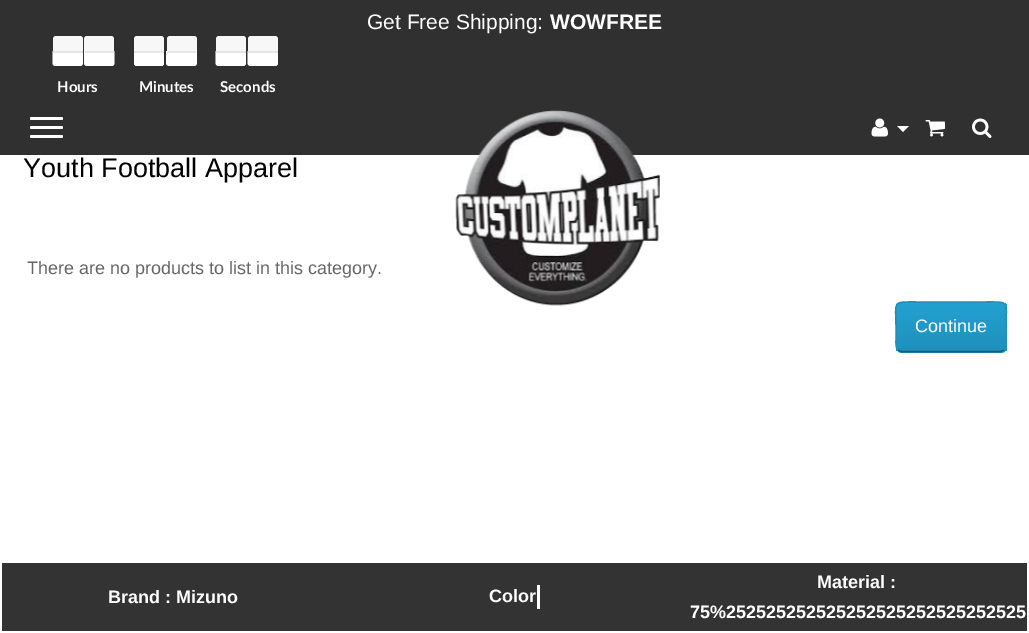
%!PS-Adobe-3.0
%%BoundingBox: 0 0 1029 633
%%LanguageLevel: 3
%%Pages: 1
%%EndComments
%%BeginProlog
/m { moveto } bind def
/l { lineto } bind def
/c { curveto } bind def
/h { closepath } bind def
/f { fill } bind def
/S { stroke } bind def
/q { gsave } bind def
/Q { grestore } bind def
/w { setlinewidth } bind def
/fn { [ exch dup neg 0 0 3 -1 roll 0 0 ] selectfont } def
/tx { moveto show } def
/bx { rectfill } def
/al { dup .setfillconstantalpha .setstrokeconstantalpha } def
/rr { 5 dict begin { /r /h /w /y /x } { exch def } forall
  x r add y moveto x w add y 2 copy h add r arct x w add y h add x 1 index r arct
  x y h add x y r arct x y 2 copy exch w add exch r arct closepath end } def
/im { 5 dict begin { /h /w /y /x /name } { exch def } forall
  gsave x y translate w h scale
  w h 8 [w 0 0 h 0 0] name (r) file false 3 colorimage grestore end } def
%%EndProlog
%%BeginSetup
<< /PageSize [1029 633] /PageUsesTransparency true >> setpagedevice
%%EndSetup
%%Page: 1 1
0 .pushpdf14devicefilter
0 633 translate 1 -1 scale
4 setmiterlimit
1 setgray
0 0 1029 633 bx
0.188 setgray
0 0 1029 155 bx
/LiberationSans-Regular 21 fn
1 setgray
(Get Free Shipping:) 367 29 tx
/LiberationSans-Bold 21 fn
(WOWFREE) 550 29 tx
0.969 setgray
56 36 m 80 36 l 81.5 36 83 37.5 83 39 c 83 51 l 53 51 l 53 39 l 53 37.5 54.5 36 56 36 c h f
1 setgray
53 51 m 83 51 l 83 63 l 83 64.5 81.5 66 80 66 c 56 66 l 54.5 66 53 64.5 53 63 c h f
0.1 al
0 setgray
82 51 1 2 bx
1 al
1 setgray
55.5 66 m 79.5 66 l 81 66 82.5 64.5 82.5 63 c 82.5 51 l 52.5 51 l 52.5 63 l 52.5 64.5 54 66 55.5 66 c h f
0.1 al
0 setgray
53 51 30 2 bx
1 al
0.969 setgray
87 36 m 111 36 l 112.5 36 114 37.5 114 39 c 114 51 l 84 51 l 84 39 l 84 37.5 85.5 36 87 36 c h f
1 setgray
84 51 m 114 51 l 114 63 l 114 64.5 112.5 66 111 66 c 87 66 l 85.5 66 84 64.5 84 63 c h f
88 66 m 111.5 66 l 113 66 114.5 64.5 114.5 63 c 114.5 51 l 84.5 51 l 84.5 63 l 84.5 64.5 86 66 88 66 c h f
0.902 setgray
85 51 29 2 bx
/Lato-Bold 15 fn
1 setgray
(Hours) 57 92 tx
0.969 setgray
137 36 m 161 36 l 162.5 36 164 37.5 164 39 c 164 51 l 134 51 l 134 39 l 134 37.5 135.5 36 137 36 c h f
1 setgray
134 51 m 164 51 l 164 63 l 164 64.5 162.5 66 161 66 c 137 66 l 135.5 66 134 64.5 134 63 c h f
137.5 66 m 161 66 l 162.5 66 164 64.5 164 63 c 164 51 l 134 51 l 134 63 l 134 64.5 135.5 66 137.5 66 c h f
0.902 setgray
134 51 30 2 bx
0.969 setgray
170 36 m 194 36 l 195.5 36 197 37.5 197 39 c 197 51 l 167 51 l 167 39 l 167 37.5 168.5 36 170 36 c h f
1 setgray
167 51 m 197 51 l 197 63 l 197 64.5 195.5 66 194 66 c 170 66 l 168.5 66 167 64.5 167 63 c h f
169.5 66 m 193 66 l 194.5 66 196 64.5 196 63 c 196 51 l 166 51 l 166 63 l 166 64.5 167.5 66 169.5 66 c h f
0.902 setgray
167 51 29 2 bx
1 setgray
(Minutes) 139 92 tx
0.969 setgray
219 36 m 243 36 l 244.5 36 246 37.5 246 39 c 246 51 l 216 51 l 216 39 l 216 37.5 217.5 36 219 36 c h f
1 setgray
216 51 m 246 51 l 246 63 l 246 64.5 244.5 66 243 66 c 219 66 l 217.5 66 216 64.5 216 63 c h f
0.1 al
0 setgray
245 51 1 2 bx
1 al
1 setgray
219 66 m 242.5 66 l 244 66 245.5 64.5 245.5 63 c 245.5 51 l 215.5 51 l 215.5 63 l 215.5 64.5 217 66 219 66 c h f
0.1 al
0 setgray
216 51 30 2 bx
1 al
0.969 setgray
251 36 m 275 36 l 276.5 36 278 37.5 278 39 c 278 51 l 248 51 l 248 39 l 248 37.5 249.5 36 251 36 c h f
1 setgray
248 51 m 278 51 l 278 63 l 278 64.5 276.5 66 275 66 c 251 66 l 249.5 66 248 64.5 248 63 c h f
0.1 al
0 setgray
277 51 1 2 bx
1 al
1 setgray
251 66 m 274.5 66 l 276 66 277.5 64.5 277.5 63 c 277.5 51 l 247.5 51 l 247.5 63 l 247.5 64.5 249 66 251 66 c h f
0.1 al
0 setgray
248 51 30 2 bx
1 al
1 setgray
(Seconds) 220 92 tx
30 117 33 3 1.5 rr f
30 126 33 3 1.5 rr f
30 135 33 3 1.5 rr f
(image0.raw) 871 118 17 19 im
897 126 m 909 126 l 903 132 l h f
(image1.raw) 925 120 20 17 im
(image2.raw) 972 118 20 20 im
(image3.raw) 455 110 205 196 im
/LiberationSans-Regular 27 fn
0 setgray
(Youth Football Apparel) 23 177 tx
/LiberationSans-Regular 18 fn
0.4 setgray
(There are no products to list in this category.) 27 274 tx
0.133 0.604 0.784 setrgbcolor
896 302 111 51 6 rr f
q
896 302 111 51 6 rr clip newpath
q 896 303 m 1007 303 l 1007 351 l 896 351 l h clip newpath
<< /ShadingType 2 /ColorSpace /DeviceRGB /Coords [951 303 951 351] /Extend [true true] /Function << /FunctionType 2 /Domain [0 1] /C0 [0.137 0.631 0.82] /C1 [0.122 0.565 0.733] /N 1 >> >> shfill Q
Q
0.078 0.369 0.478 setrgbcolor
1.5 w
1004 350 m 1001 351.5 l 901 351.5 l 898 350 l S
0.122 0.565 0.733 setrgbcolor
898 350 m 895.5 347.5 896 343 896 340 c 896 327 l 896 300 891.5 302 918 302 c 984 302 l 1010.5 302 1006 300 1006 327 c 1006 340 l 1006 343 1006.5 347.5 1004 350 c S
1 setgray
(Continue) 915 332 tx
0.2 setgray
2 563 1025 68 bx
/LiberationSans-Bold 18 fn
1 setgray
(Brand : Mizuno) 108 603 tx
(Color) 489 602 tx
537 585 3 24 bx
(Material :) 817 588 tx
(75%252525252525252525252525252525) 690 618 tx
.poppdf14devicefilter showpage
%%EOF
